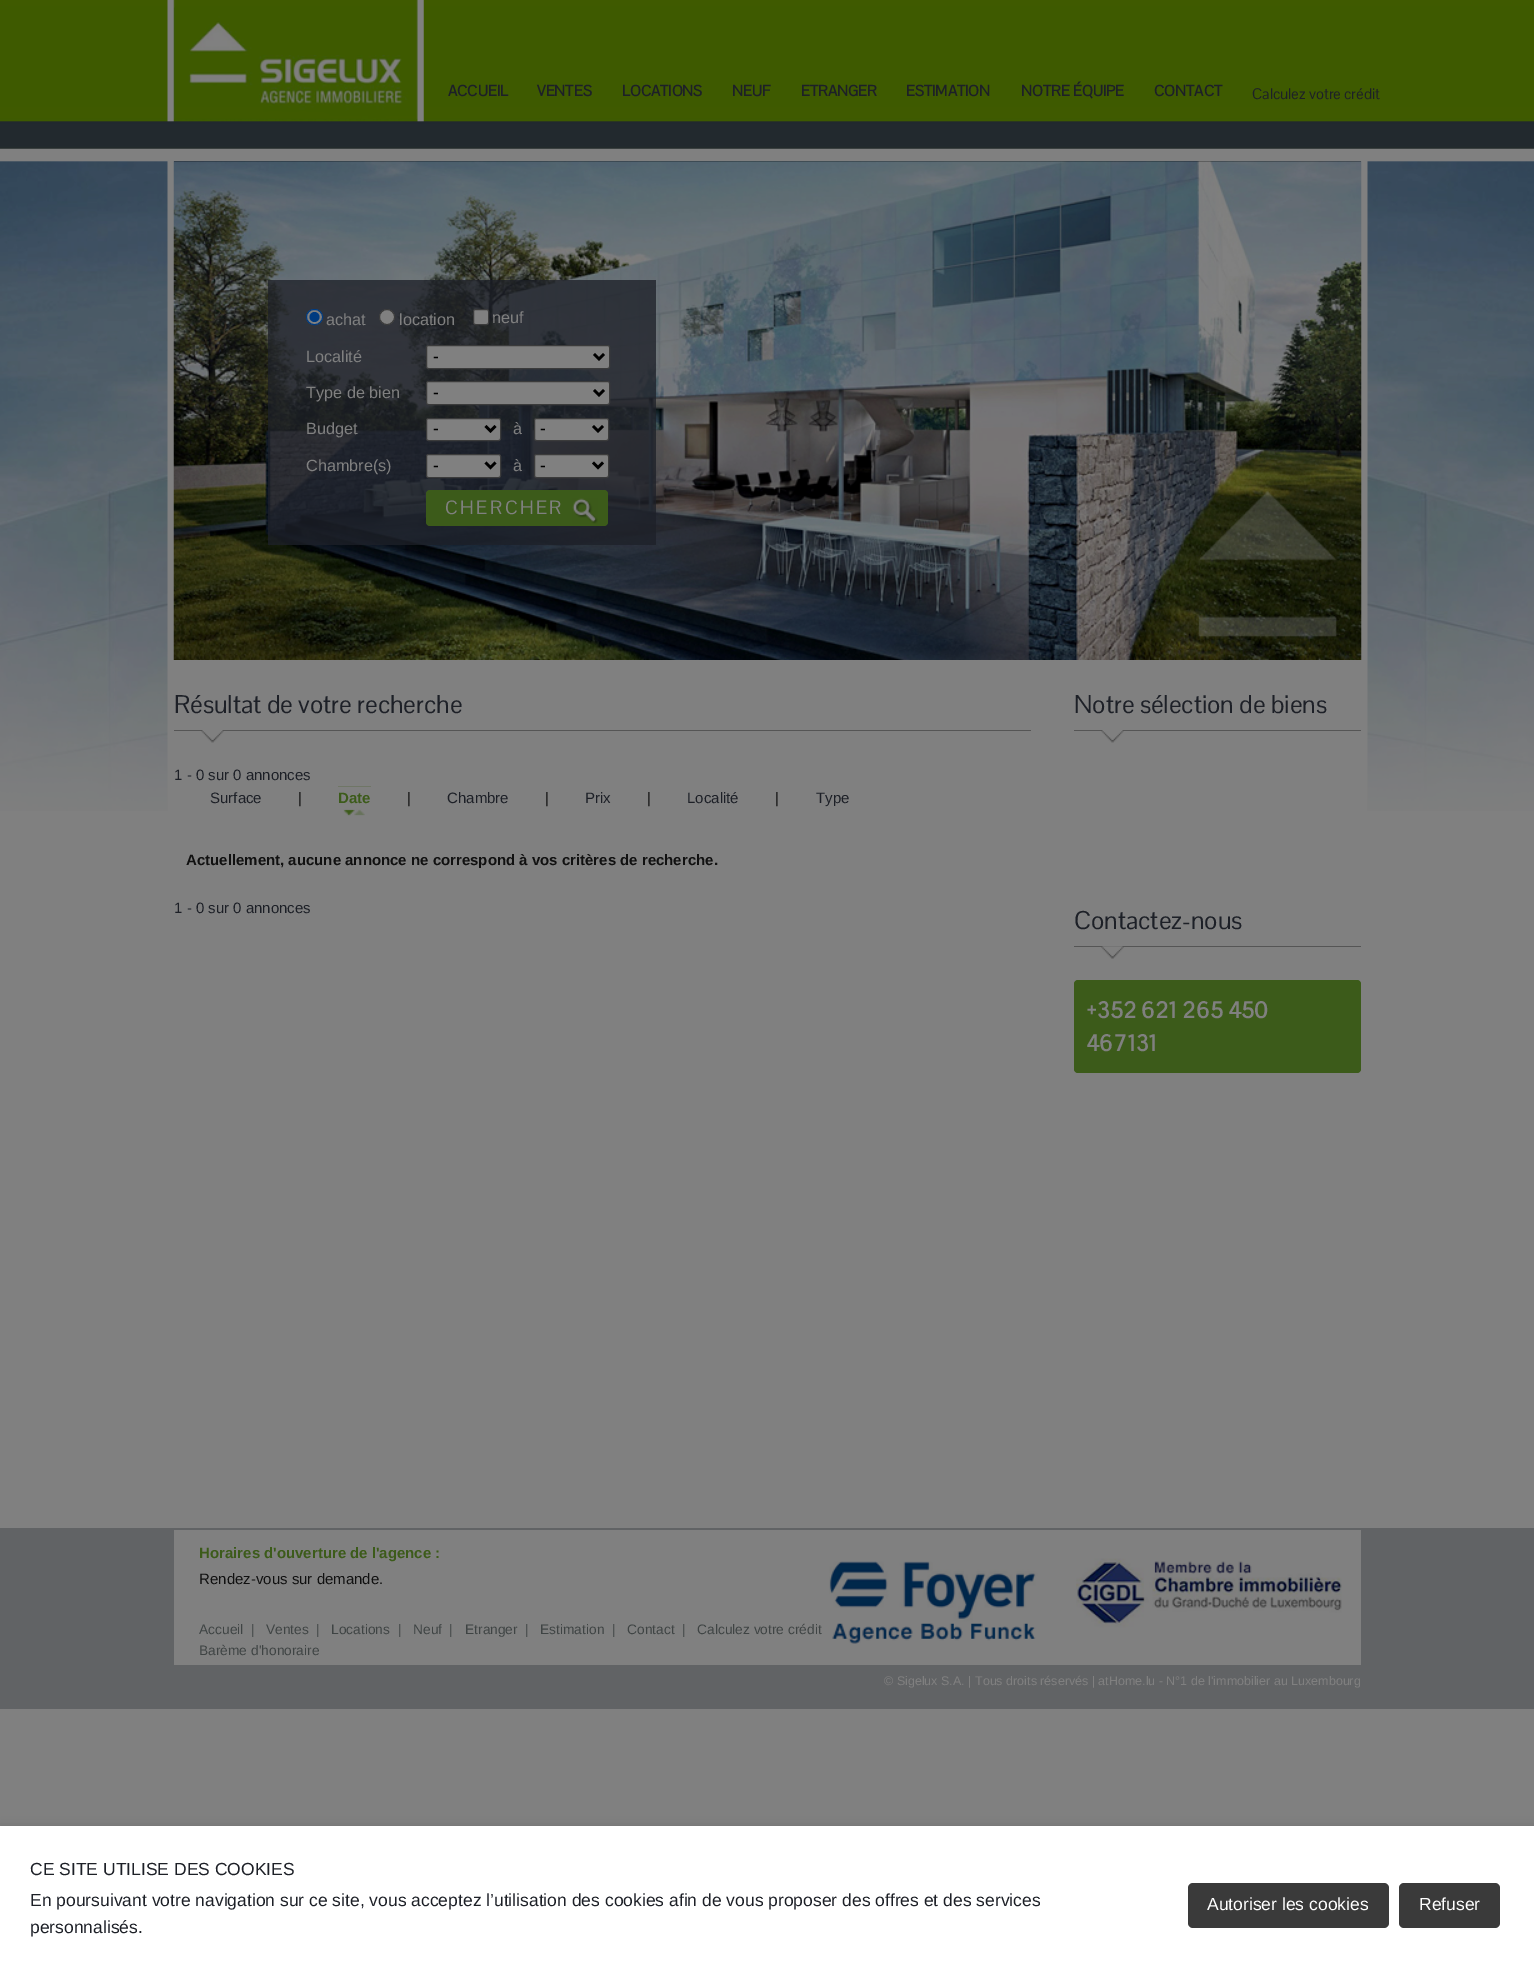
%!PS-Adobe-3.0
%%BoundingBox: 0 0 1534 1982
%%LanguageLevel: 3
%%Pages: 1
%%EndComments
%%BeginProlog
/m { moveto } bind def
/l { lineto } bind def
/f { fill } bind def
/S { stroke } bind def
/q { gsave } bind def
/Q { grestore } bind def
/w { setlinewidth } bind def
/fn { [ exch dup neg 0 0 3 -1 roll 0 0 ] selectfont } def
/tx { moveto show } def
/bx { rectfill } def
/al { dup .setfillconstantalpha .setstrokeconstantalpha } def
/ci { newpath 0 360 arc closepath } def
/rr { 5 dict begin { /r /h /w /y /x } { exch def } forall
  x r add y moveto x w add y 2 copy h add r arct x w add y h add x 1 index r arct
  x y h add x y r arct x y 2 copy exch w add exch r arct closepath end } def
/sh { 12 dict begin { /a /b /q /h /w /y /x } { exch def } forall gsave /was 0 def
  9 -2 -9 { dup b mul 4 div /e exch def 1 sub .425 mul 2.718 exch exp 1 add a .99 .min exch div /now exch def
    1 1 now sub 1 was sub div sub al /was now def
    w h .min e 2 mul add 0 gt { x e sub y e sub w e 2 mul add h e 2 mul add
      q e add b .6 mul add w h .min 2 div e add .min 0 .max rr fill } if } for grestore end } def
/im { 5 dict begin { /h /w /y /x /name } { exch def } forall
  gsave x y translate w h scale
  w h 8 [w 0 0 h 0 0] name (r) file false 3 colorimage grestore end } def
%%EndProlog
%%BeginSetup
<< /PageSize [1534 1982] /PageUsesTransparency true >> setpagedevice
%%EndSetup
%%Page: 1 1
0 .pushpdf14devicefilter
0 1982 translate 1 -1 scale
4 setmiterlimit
0.502 setgray
0 0 1534 1982 bx
(image0.raw) 0 0 1534 811 im
0.38 0.388 0.396 setrgbcolor
0 1528 1534 181 bx
(image1.raw) 173 161 1189 499 im
/PontanoSans-Bold 15 fn
0.114 0.125 0.153 setrgbcolor
(ACCUEIL) 448 96 tx
(VENTES) 537 96 tx
(LOCATIONS) 622 96 tx
(NEUF) 732 96 tx
(ETRANGER) 801 96 tx
(ESTIMATION) 906 96 tx
(NOTRE ÉQUIPE) 1021 96 tx
(CONTACT) 1154 96 tx
/PontanoSans-Regular 15 fn
(Calculez votre crédit) 1252 99 tx
0.77 al
0.114 0.125 0.157 setrgbcolor
268 280 388 265 bx
1 al
0.502 setgray
306.5 309.5 16 15 7.5 rr q f Q
0 0.231 0.502 setrgbcolor
S
314.5 317 5 ci f
/LiberationSans-Regular 16.25 fn
0.502 setgray
(achat) 326 325 tx
387 317 7.5 ci q f Q
0.231 setgray
S
0.502 setgray
(location) 399 325 tx
473.5 309.5 15 15 2 rr q f Q
0.231 setgray
S
0.502 setgray
(neuf) 492 323 tx
(Localité) 306 362 tx
426.5 345.5 183 23 2 rr q f Q
0.231 setgray
S
0 setgray
2.5 w
594 354 m 599 359 l 604 354 l S
/LiberationSans-Regular 17 fn
(-) 433 362 tx
/LiberationSans-Regular 16.25 fn
0.502 setgray
(Type de bien) 306 398 tx
426.5 381.5 183 23 2 rr q f Q
0.231 setgray
1 w
S
0 setgray
2.5 w
594 390 m 599 395 l 604 390 l S
/LiberationSans-Regular 17 fn
(-) 433 398 tx
/LiberationSans-Regular 16.25 fn
0.502 setgray
(Budget) 306 434 tx
426.5 418.5 74 22 2 rr q f Q
0.231 setgray
1 w
S
0 setgray
2.5 w
485.5 426 m 490.5 431 l 495.5 426 l S
/LiberationSans-Regular 17 fn
(-) 433 434 tx
/LiberationSans-Regular 16.25 fn
0.502 setgray
(à) 513 434 tx
534.5 418.5 74 22 2 rr q f Q
0.231 setgray
1 w
S
0 setgray
2.5 w
593 426 m 598 431 l 603 426 l S
/LiberationSans-Regular 17 fn
(-) 540 434 tx
/LiberationSans-Regular 16.25 fn
0.502 setgray
(Chambre\(s\)) 306 471 tx
426.5 454.5 74 23 2 rr q f Q
0.231 setgray
1 w
S
0 setgray
2.5 w
485.5 462.5 m 490.5 467.5 l 495.5 462.5 l S
/LiberationSans-Regular 17 fn
(-) 433 471 tx
/LiberationSans-Regular 16.25 fn
0.502 setgray
(à) 513 471 tx
534.5 454.5 74 23 2 rr q f Q
0.231 setgray
1 w
S
0 setgray
2.5 w
593 462.5 m 598 467.5 l 603 462.5 l S
/LiberationSans-Regular 17 fn
(-) 540 471 tx
0.235 0.357 0.102 setrgbcolor
426 490 182 36 4 rr f
(image2.raw) 572 498 26 26 im
/PontanoSans-Regular 18.75 fn
0.502 setgray
445 514 m 2.5 0 (CHERCHER) ashow
0.333 setgray
174 730 857 1 bx
/PontanoSans-Regular 25 fn
0.114 0.125 0.153 setrgbcolor
(Résultat de votre recherche) 174 713 tx
(image3.raw) 201 730 23 13 im
/LiberationSans-Regular 15 fn
(1 - 0 sur 0 annonces) 174 780 tx
(Surface) 210 803 tx
0.067 setgray
(|) 298 803 tx
0.235 0.357 0.102 setrgbcolor
338 786 33 30 bx
(image4.raw) 338 786 33 35 im
/LiberationSans-Bold 15 fn
(Date) 338 803 tx
/LiberationSans-Regular 15 fn
0.067 setgray
(|) 407 803 tx
0.114 0.125 0.153 setrgbcolor
(Chambre) 447 803 tx
0.067 setgray
(|) 545 803 tx
0.114 0.125 0.153 setrgbcolor
(Prix) 585 803 tx
0.067 setgray
(|) 647 803 tx
0.114 0.125 0.153 setrgbcolor
(Localité) 687 803 tx
0.067 setgray
(|) 775 803 tx
0.114 0.125 0.153 setrgbcolor
(Type) 816 803 tx
/LiberationSans-Bold 15 fn
0.067 setgray
(Actuellement, aucune annonce ne correspond à vos critères de recherche.) 186 865 tx
/LiberationSans-Regular 15 fn
0.114 0.125 0.153 setrgbcolor
(1 - 0 sur 0 annonces) 174 913 tx
0.333 setgray
1074 730 287 1 bx
/PontanoSans-Regular 25 fn
0.114 0.125 0.153 setrgbcolor
(Notre sélection de biens) 1074 713 tx
(image3.raw) 1101 730 23 13 im
0.333 setgray
1074 946 287 1 bx
0.114 0.125 0.153 setrgbcolor
(Contactez-nous) 1074 929 tx
(image5.raw) 1101 946 23 13 im
0.235 0.357 0.102 setrgbcolor
1074 980 287 93 4 rr f
/PontanoSans-Bold 22.5 fn
0.502 setgray
(+352 621 265 450) 1086 1018 tx
(467131) 1086 1051 tx
174 1530 1187 135 bx
(image6.raw) 829 1558 513 86 im
/LiberationSans-Bold 15 fn
0.235 0.357 0.102 setrgbcolor
(Horaires d'ouverture de l'agence :) 199 1558 tx
/LiberationSans-Regular 15 fn
0.067 setgray
(Rendez-vous sur demande.) 199 1584 tx
/LiberationSans-Regular 13.75 fn
0.247 0.267 0.267 setrgbcolor
(Accueil) 199 1634 tx
(|) 251 1634 tx
(Ventes) 266 1634 tx
(|) 316 1634 tx
(Locations) 331 1634 tx
(|) 398 1634 tx
(Neuf) 413 1634 tx
(|) 449 1634 tx
(Etranger) 465 1634 tx
(|) 525 1634 tx
(Estimation) 540 1634 tx
(|) 612 1634 tx
(Contact) 627 1634 tx
(|) 682 1634 tx
(Calculez votre crédit) 697 1634 tx
(Barème d'honoraire) 199 1655 tx
/LiberationSans-Regular 12.5 fn
0.502 setgray
(© Sigelux S.A. | Tous droits réservés | atHome.lu - N°1 de l'immobilier au Luxembourg) 884 1685 tx
0.376 setgray
0 1830 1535 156 0 6 1 sh
1 setgray
0 1826 1534 156 bx
/LiberationSans-Regular 17.5 fn
0.114 0.125 0.153 setrgbcolor
(CE SITE UTILISE DES COOKIES) 30 1875 tx
(En poursuivant votre navigation sur ce site, vous acceptez l’utilisation des cookies afin de vous proposer des offres et des services) 30 1906 tx
(personnalisés.) 30 1933 tx
0.227 setgray
1188 1883 201 45 5 rr f
1 setgray
(Autoriser les cookies) 1207 1910 tx
0.227 setgray
1399 1883 101 45 5 rr f
1 setgray
(Refuser) 1419 1910 tx
.poppdf14devicefilter showpage
%%EOF
